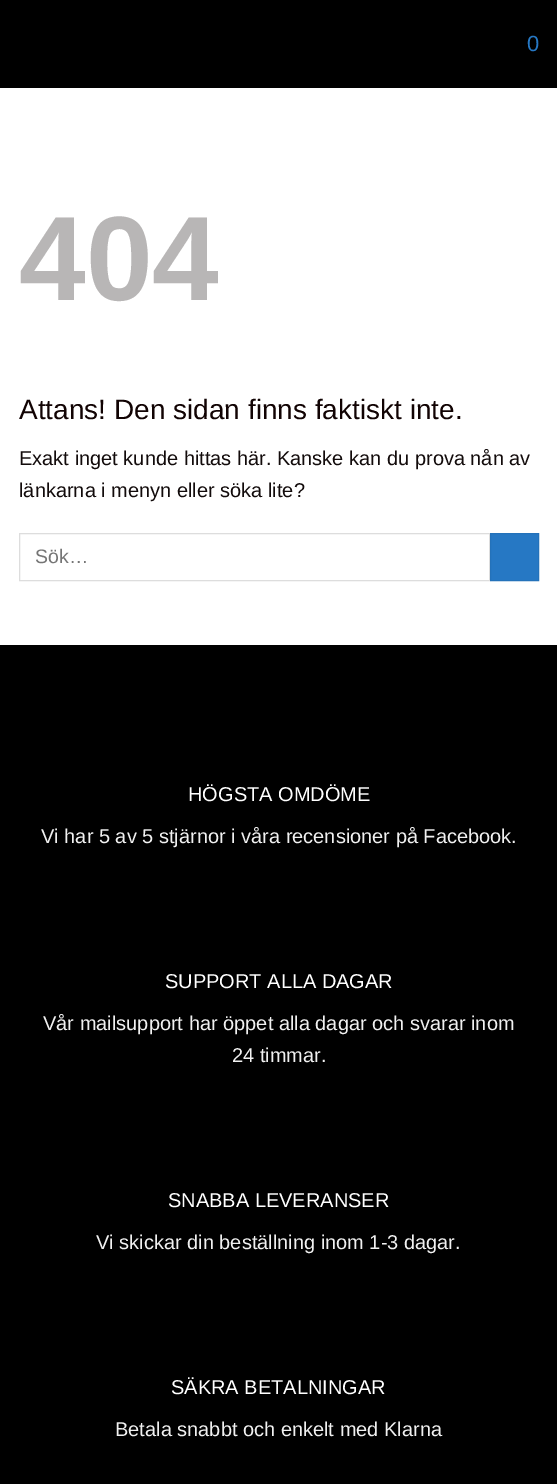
%!PS-Adobe-3.0
%%BoundingBox: 0 0 557 1484
%%LanguageLevel: 3
%%Pages: 1
%%EndComments
%%BeginProlog
/m { moveto } bind def
/l { lineto } bind def
/h { closepath } bind def
/f { fill } bind def
/S { stroke } bind def
/q { gsave } bind def
/Q { grestore } bind def
/fn { [ exch dup neg 0 0 3 -1 roll 0 0 ] selectfont } def
/tx { moveto show } def
/bx { rectfill } def
%%EndProlog
%%BeginSetup
<< /PageSize [557 1484] >> setpagedevice
%%EndSetup
%%Page: 1 1
0 1484 translate 1 -1 scale
4 setmiterlimit
1 setgray
0 0 557 1484 bx
0 setgray
0 0 557 88 bx
/LiberationSans-Regular 22 fn
0.149 0.471 0.769 setrgbcolor
(0) 527 51 tx
/LiberationSans-Bold 120 fn
0.722 0.714 0.714 setrgbcolor
(404) 19 300 tx
/LiberationSans-Regular 28 fn
0.067 0.012 0.012 setrgbcolor
(Attans! Den sidan finns faktiskt inte.) 19 419 tx
/LiberationSans-Regular 20 fn
0.071 0.043 0.043 setrgbcolor
(Exakt inget kunde hittas här. Kanske kan du prova nån av) 19 465 tx
(länkarna i menyn eller söka lite?) 19 497 tx
0.867 setgray
19.5 533.5 470 47 rectstroke
/LiberationSans-Regular 19.5 fn
0.459 setgray
(Sök…) 35 563 tx
0.149 0.471 0.769 setrgbcolor
490.5 533.5 m 538.5 533.5 l 538.5 580.5 l 490.5 580.5 l h q f Q
0.141 0.447 0.729 setrgbcolor
S
0 setgray
0 645 557 839 bx
/LiberationSans-Regular 20 fn
1 setgray
(HÖGSTA OMDÖME) 188 801 tx
0.945 setgray
(Vi har 5 av 5 stjärnor i våra recensioner på Facebook.) 41 843 tx
1 setgray
(SUPPORT ALLA DAGAR) 165 988 tx
0.945 setgray
(Vår mailsupport har öppet alla dagar och svarar inom) 43 1030 tx
(24 timmar.) 232 1062 tx
1 setgray
(SNABBA LEVERANSER) 168 1207 tx
0.945 setgray
(Vi skickar din beställning inom 1-3 dagar.) 96 1249 tx
1 setgray
(SÄKRA BETALNINGAR) 171 1394 tx
0.945 setgray
(Betala snabbt och enkelt med Klarna) 115 1436 tx
showpage
%%EOF
